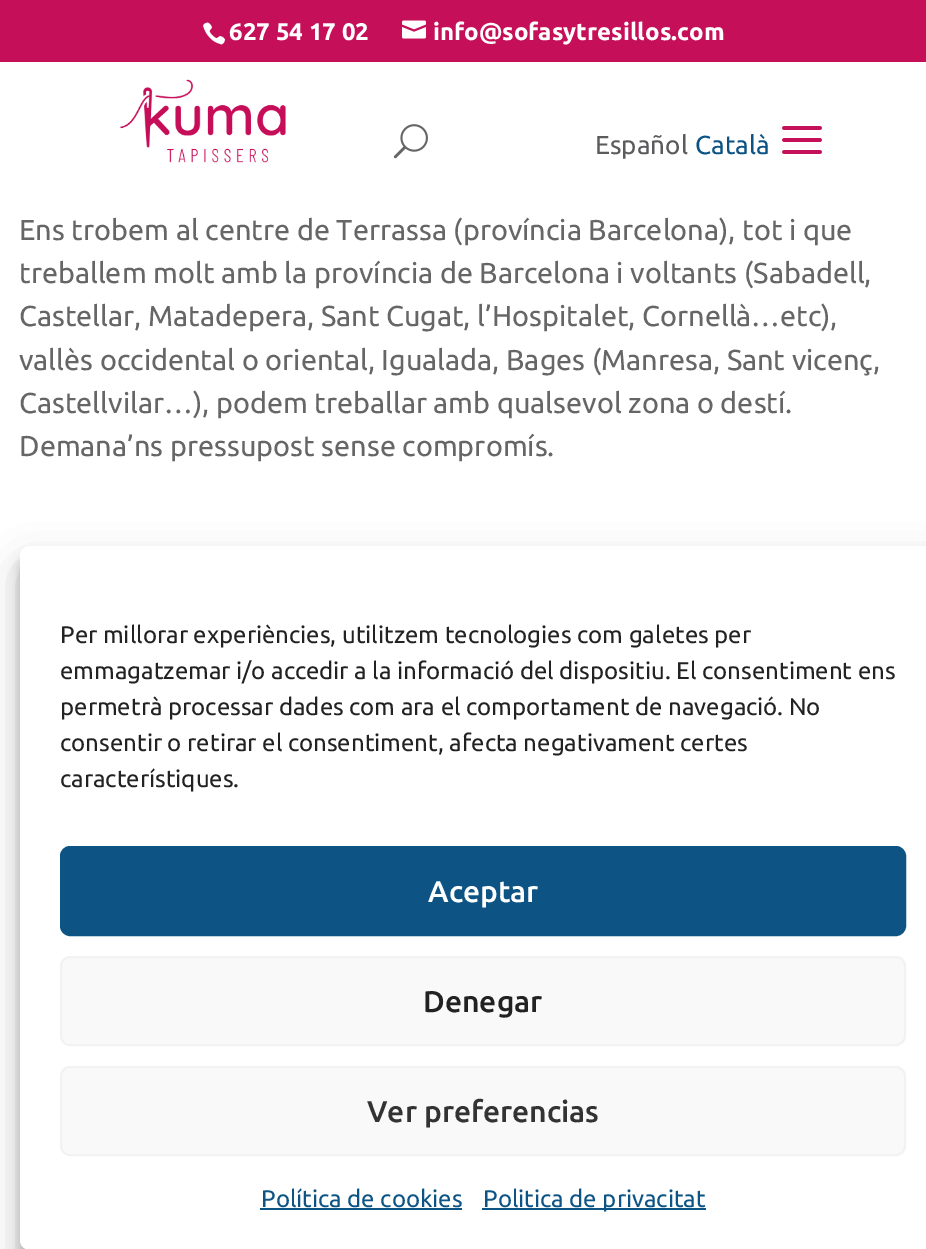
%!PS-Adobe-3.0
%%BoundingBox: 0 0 926 1249
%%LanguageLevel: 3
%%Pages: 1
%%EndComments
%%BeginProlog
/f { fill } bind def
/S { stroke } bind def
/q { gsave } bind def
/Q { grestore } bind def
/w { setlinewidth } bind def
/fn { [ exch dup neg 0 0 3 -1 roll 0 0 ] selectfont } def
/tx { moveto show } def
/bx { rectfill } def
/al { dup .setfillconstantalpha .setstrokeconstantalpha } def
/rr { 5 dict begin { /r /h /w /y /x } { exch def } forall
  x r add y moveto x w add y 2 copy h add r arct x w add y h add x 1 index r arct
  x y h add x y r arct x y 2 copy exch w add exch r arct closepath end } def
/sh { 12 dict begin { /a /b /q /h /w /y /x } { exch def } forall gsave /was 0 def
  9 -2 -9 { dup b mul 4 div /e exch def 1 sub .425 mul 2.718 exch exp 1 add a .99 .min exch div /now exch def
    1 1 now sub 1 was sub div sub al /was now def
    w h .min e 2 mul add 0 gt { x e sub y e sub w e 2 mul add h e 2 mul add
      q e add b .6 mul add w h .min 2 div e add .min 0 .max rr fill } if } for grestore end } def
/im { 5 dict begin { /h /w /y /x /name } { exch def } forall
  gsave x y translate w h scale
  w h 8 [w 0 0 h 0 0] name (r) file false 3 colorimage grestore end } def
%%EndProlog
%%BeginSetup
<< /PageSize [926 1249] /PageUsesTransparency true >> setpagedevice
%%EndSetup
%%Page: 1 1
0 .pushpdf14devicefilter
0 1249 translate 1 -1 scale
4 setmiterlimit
1 setgray
0 0 926 1249 bx
0.776 0.059 0.349 setrgbcolor
0 0 926 62 bx
(image0.raw) 203 22 22 23 im
/Ubuntu-Bold 24 fn
1 setgray
(627 54 17 02) 229 40 tx
(image1.raw) 402 20 24 19 im
(info@sofasytresillos.com) 433 40 tx
(image2.raw) 120 79 166 84 im
(image3.raw) 393 124 35 35 im
/Ubuntu-Regular 26 fn
0.357 0.357 0.369 setrgbcolor
(Español) 595 154 tx
0.051 0.329 0.522 setrgbcolor
(Català) 695 154 tx
(image4.raw) 782 126 40 28 im
/Ubuntu-Regular 28.8 fn
0.4 setgray
(Ens trobem al centre de Terrassa \(província Barcelona\), tot i que) 19 240 tx
(treballem molt amb la província de Barcelona i voltants \(Sabadell,) 19 283 tx
(Castellar, Matadepera, Sant Cugat, l’Hospitalet, Cornellà…etc\),) 19 326 tx
(vallès occidental o oriental, Igualada, Bages \(Manresa, Sant vicenç,) 19 370 tx
(Castellvilar…\), podem treballar amb qualsevol zona o destí.) 19 413 tx
(Demana’ns pressupost sense compromís.) 19 456 tx
0 setgray
20 558 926 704 10 6 0.23 sh
20 566 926 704 10 20 0.19 sh
1 setgray
20 546 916 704 10 rr f
/Ubuntu-Regular 24 fn
0.133 setgray
(Per millorar experiències, utilitzem tecnologies com galetes per) 60 643 tx
(emmagatzemar i/o accedir a la informació del dispositiu. El consentiment ens) 60 679 tx
(permetrà processar dades com ara el comportament de navegació. No) 60 715 tx
(consentir o retirar el consentiment, afecta negativament certes) 60 751 tx
(característiques.) 60 787 tx
0.051 0.329 0.522 setrgbcolor
61 847 844 88 9 rr q f Q
2 w
S
/Ubuntu-Medium 30 fn
1 setgray
(Aceptar) 428 902 tx
0.976 setgray
61 957 844 88 9 rr q f Q
0.949 setgray
S
0.133 setgray
(Denegar) 423 1012 tx
0.976 setgray
61 1067 844 88 9 rr q f Q
0.949 setgray
S
0.2 setgray
(Ver preferencias) 367 1122 tx
/Ubuntu-Regular 24 fn
0.051 0.329 0.522 setrgbcolor
(Política de cookies) 261 1207 tx
260 1208 202 2 bx
482 1208 224 2 bx
(Politica de privacitat) 483 1207 tx
.poppdf14devicefilter showpage
%%EOF
